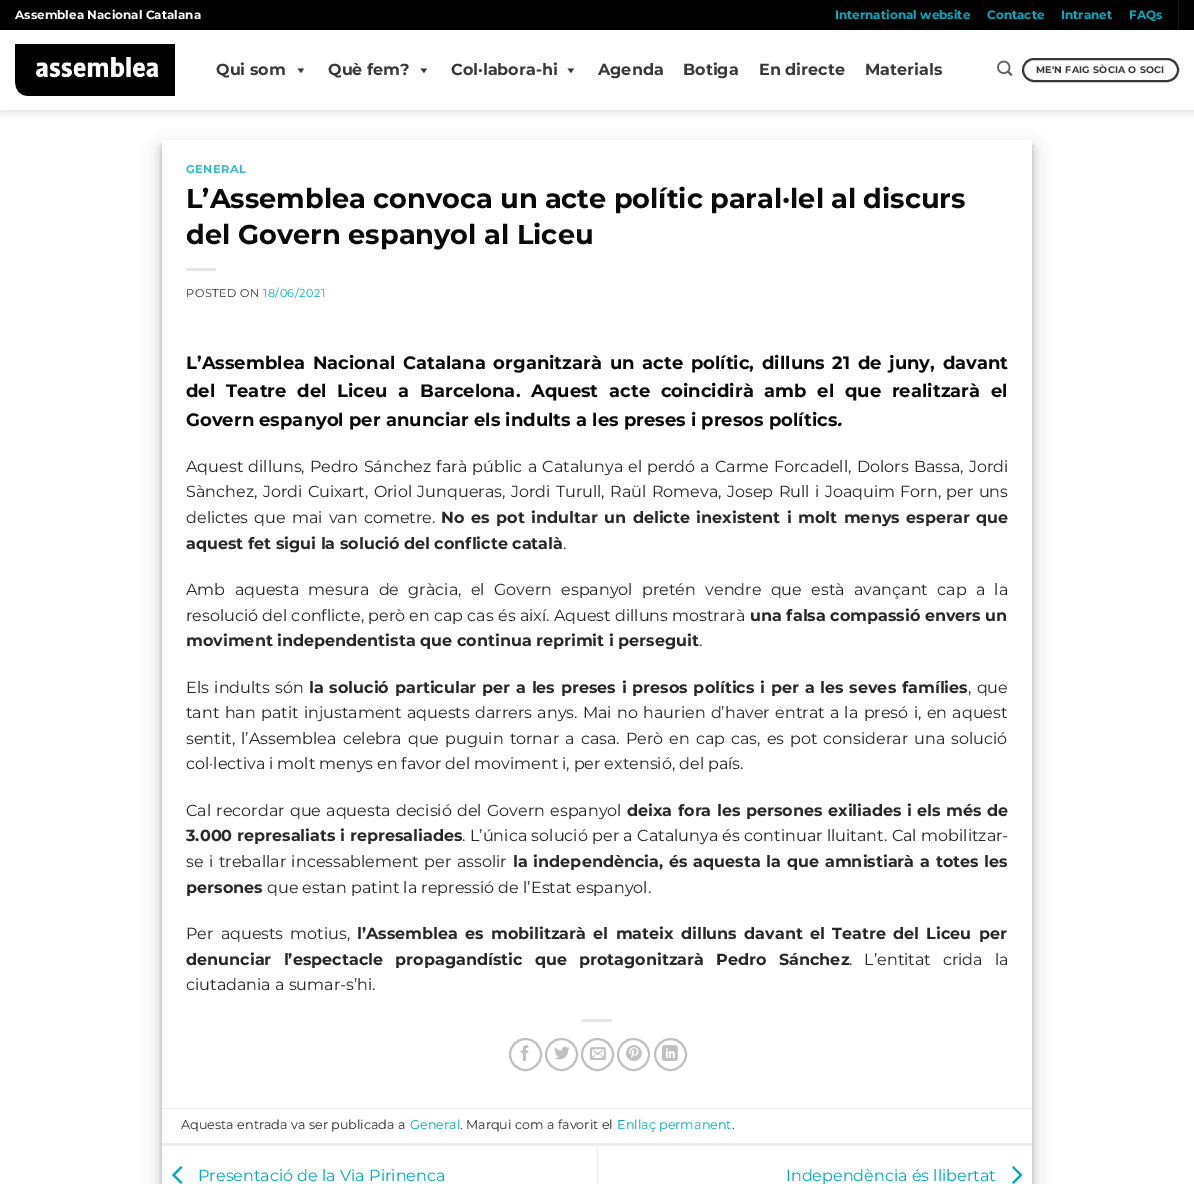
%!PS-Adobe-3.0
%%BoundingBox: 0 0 1194 1184
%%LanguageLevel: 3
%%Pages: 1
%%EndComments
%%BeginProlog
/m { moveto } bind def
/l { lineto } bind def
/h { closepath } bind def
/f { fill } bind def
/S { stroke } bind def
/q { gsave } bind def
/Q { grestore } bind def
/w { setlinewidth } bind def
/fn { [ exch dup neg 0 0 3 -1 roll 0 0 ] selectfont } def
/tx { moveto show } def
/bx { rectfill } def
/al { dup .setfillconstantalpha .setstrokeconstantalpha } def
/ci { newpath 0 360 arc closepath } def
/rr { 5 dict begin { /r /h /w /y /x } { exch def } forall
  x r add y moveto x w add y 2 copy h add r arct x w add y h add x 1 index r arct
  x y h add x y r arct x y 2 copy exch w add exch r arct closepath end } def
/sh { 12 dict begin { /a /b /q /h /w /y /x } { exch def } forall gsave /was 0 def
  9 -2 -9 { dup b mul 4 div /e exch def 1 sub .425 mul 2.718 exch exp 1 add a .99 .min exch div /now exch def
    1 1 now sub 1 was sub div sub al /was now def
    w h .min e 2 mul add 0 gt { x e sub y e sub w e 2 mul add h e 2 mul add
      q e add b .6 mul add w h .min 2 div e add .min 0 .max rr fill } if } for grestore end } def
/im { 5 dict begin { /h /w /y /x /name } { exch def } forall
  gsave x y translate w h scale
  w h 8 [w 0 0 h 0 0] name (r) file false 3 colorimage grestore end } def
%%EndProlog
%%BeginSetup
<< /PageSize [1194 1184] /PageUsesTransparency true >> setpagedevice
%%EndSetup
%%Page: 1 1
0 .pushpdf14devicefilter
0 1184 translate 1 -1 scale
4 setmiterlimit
1 setgray
0 0 1194 1184 bx
q
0 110 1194 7 rectclip
0 setgray
1 1 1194 110 0 5 0.15 sh
Q
0 setgray
0 0 1194 30 bx
/Montserrat-Bold 12 fn
1 setgray
(Assemblea Nacional Catalana) 15 19 tx
0 0.671 0.745 setrgbcolor
(International website) 835 19 tx
(Contacte) 987 19 tx
(Intranet) 1061 19 tx
(FAQs) 1129 19 tx
0.102 setgray
1178 0 1 30 bx
(image0.raw) 15 44 160 52 im
/Montserrat-Bold 16 fn
0.22 setgray
(Qui som) 216 75 tx
304 68.5 m 301 73 l 297.5 68.5 l h f
(Què fem?) 328 75 tx
427 68.5 m 424 73 l 420.5 68.5 l h f
(Col·labora-hi) 451 75 tx
574 68.5 m 571 73 l 567.5 68.5 l h f
(Agenda) 598 75 tx
(Botiga) 683 75 tx
(En directe) 759 75 tx
(Materials) 865 75 tx
(image1.raw) 997 60 16 16 im
2 w
1023 59 155 22 11 rr S
/Montserrat-Bold 9.5 fn
1036 73 m 0.25 0 (ME'N FAIG SÒCIA O SOCI) ashow
q
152 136 m 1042 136 l 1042 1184 l 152 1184 l h 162 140 m 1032 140 l 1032 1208 l 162 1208 l h eoclip newpath
0 setgray
162 146 870 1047 0 3 0.22 sh
Q
q
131 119 m 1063 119 l 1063 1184 l 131 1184 l h 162 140 m 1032 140 l 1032 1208 l 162 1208 l h eoclip newpath
0 setgray
162 150 870 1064 0 10 0.19 sh
Q
/Montserrat-Bold 11.25 fn
0.2 0.737 0.796 setrgbcolor
186 173 m 0.5 0 (GENERAL) ashow
/Montserrat-Bold 27.2 fn
0.039 setgray
186 208 m -0.5 0 32 (L’Assemblea convoca un acte polític paral·lel al discurs) widthshow
(del Govern espanyol al Liceu) 186 244 tx
0.902 setgray
186 268 30 3 bx
/Montserrat-Regular 11.25 fn
0.157 setgray
186 297 m 0.5 0 (POSTED ON) ashow
0 0.671 0.745 setrgbcolor
263 297 m 0.5 0 (18/06/2021) ashow
/Montserrat-Bold 18 fn
0.039 setgray
186 369 m 2.5 0 32 (L’Assemblea Nacional Catalana organitzarà un acte polític, dilluns 21 de juny, davant) widthshow
186 397 m 5.6 0 32 (del Teatre del Liceu a Barcelona. Aquest acte coincidirà amb el que realitzarà el) widthshow
(Govern espanyol per anunciar els indults a les preses i presos polítics) 186 426 tx
/Montserrat-BoldItalic 18 fn
(.) 837 426 tx
/Montserrat-Regular 16 fn
0.157 setgray
186 472 m 1 0 32 (Aquest dilluns, Pedro Sánchez farà públic a Catalunya el perdó a Carme Forcadell, Dolors Bassa, Jordi) widthshow
186 497 m 1.2 0 32 (Sànchez, Jordi Cuixart, Oriol Junqueras, Jordi Turull, Raül Romeva, Josep Rull i Joaquim Forn, per uns) widthshow
186 523 m 2 0 32 (delictes que mai van cometre.) widthshow
/Montserrat-Bold 16 fn
441 523 m 2 0 32 (No es pot indultar un delicte inexistent i molt menys esperar que) widthshow
(aquest fet sigui la solució del conflicte català) 186 549 tx
/Montserrat-Regular 16 fn
(.) 563 549 tx
186 595 m 5.1 0 32 (Amb aquesta mesura de gràcia, el Govern espanyol pretén vendre que està avançant cap a la) widthshow
(resolució del conflicte, però en cap cas és així. Aquest dilluns mostrarà) 186 621 tx
/Montserrat-Bold 16 fn
(una falsa compassió envers un) 750 621 tx
(moviment independentista que continua reprimit i perseguit) 186 646 tx
/Montserrat-Regular 16 fn
(.) 699 646 tx
186 693 m 1.25 0 32 (Els indults són) widthshow
/Montserrat-Bold 16 fn
309 693 m 1.25 0 32 (la solució particular per a les preses i presos polítics i per a les seves famílies) widthshow
/Montserrat-Regular 16 fn
968 693 m 1 0 32 (, que) widthshow
186 718 m 1.1 0 32 (tant han patit injustament aquests darrers anys. Mai no haurien d’haver entrat a la presó i, en aquest) widthshow
186 744 m 1.8 0 32 (sentit, l’Assemblea celebra que puguin tornar a casa. Però en cap cas, es pot considerar una solució) widthshow
186 769 m -0.25 0 32 (col·lectiva i molt menys en favor del moviment i, per extensió, del país.) widthshow
186 816 m 1 0 32 (Cal recordar que aquesta decisió del Govern espanyol) widthshow
/Montserrat-Bold 16 fn
627 816 m 1 0 32 (deixa fora les persones exiliades i els més de) widthshow
186 841 m 0.25 0 32 (3.000 represaliats i represaliades) widthshow
/Montserrat-Regular 16 fn
462 841 m 0.25 0 32 (. L’única solució per a Catalunya és continuar lluitant. Cal mobilitzar-) widthshow
186 867 m 1.25 0 32 (se i treballar incessablement per assolir) widthshow
/Montserrat-Bold 16 fn
513 867 m 1.25 0 32 (la independència, és aquesta la que amnistiarà a totes les) widthshow
(persones) 186 893 tx
/Montserrat-Regular 16 fn
(que estan patint la repressió de l’Estat espanyol.) 267 893 tx
186 939 m 2.75 0 32 (Per aquests motius,) widthshow
/Montserrat-Bold 16 fn
357 939 m 2.75 0 32 (l’Assemblea es mobilitzarà el mateix dilluns davant el Teatre del Liceu per) widthshow
186 965 m 7.75 0 32 (denunciar l’espectacle propagandístic que protagonitzarà Pedro Sánchez) widthshow
/Montserrat-Regular 16 fn
849 965 m 7.75 0 32 (. L’entitat crida la) widthshow
(ciutadania a sumar-s’hi.) 186 990 tx
0.902 setgray
582 1019 30 3 bx
0.753 setgray
525.5 1054.5 15.5 ci S
(image2.raw) 521 1045 8 16 im
561.5 1054.5 15.5 ci S
(image3.raw) 554 1046 16 14 im
597.5 1054.5 15.5 ci S
(image4.raw) 590 1047 16 13 im
633.5 1054.5 15.5 ci S
(image5.raw) 626 1045 16 16 im
670.5 1054.5 15.5 ci S
(image6.raw) 662 1045 16 16 im
0.925 setgray
162 1108 870 1 bx
162 1143 870 3 bx
/Montserrat-Regular 12.75 fn
0.157 setgray
(Aquesta entrada va ser publicada a) 181 1129 tx
0 0.671 0.745 setrgbcolor
(General) 410 1129 tx
0.157 setgray
(. Marqui com a favorit el) 460 1129 tx
0 0.671 0.745 setrgbcolor
(Enllaç permanent) 617 1129 tx
0.157 setgray
(.) 732 1129 tx
(image7.raw) 172 1166 11 18 im
/Montserrat-Regular 16 fn
0 0.671 0.745 setrgbcolor
(Presentació de la Via Pirinenca) 198 1181 tx
0.925 setgray
597 1146 1 38 bx
0 0.671 0.745 setrgbcolor
(Independència és llibertat) 786 1181 tx
(image8.raw) 1012 1166 11 18 im
.poppdf14devicefilter showpage
%%EOF
